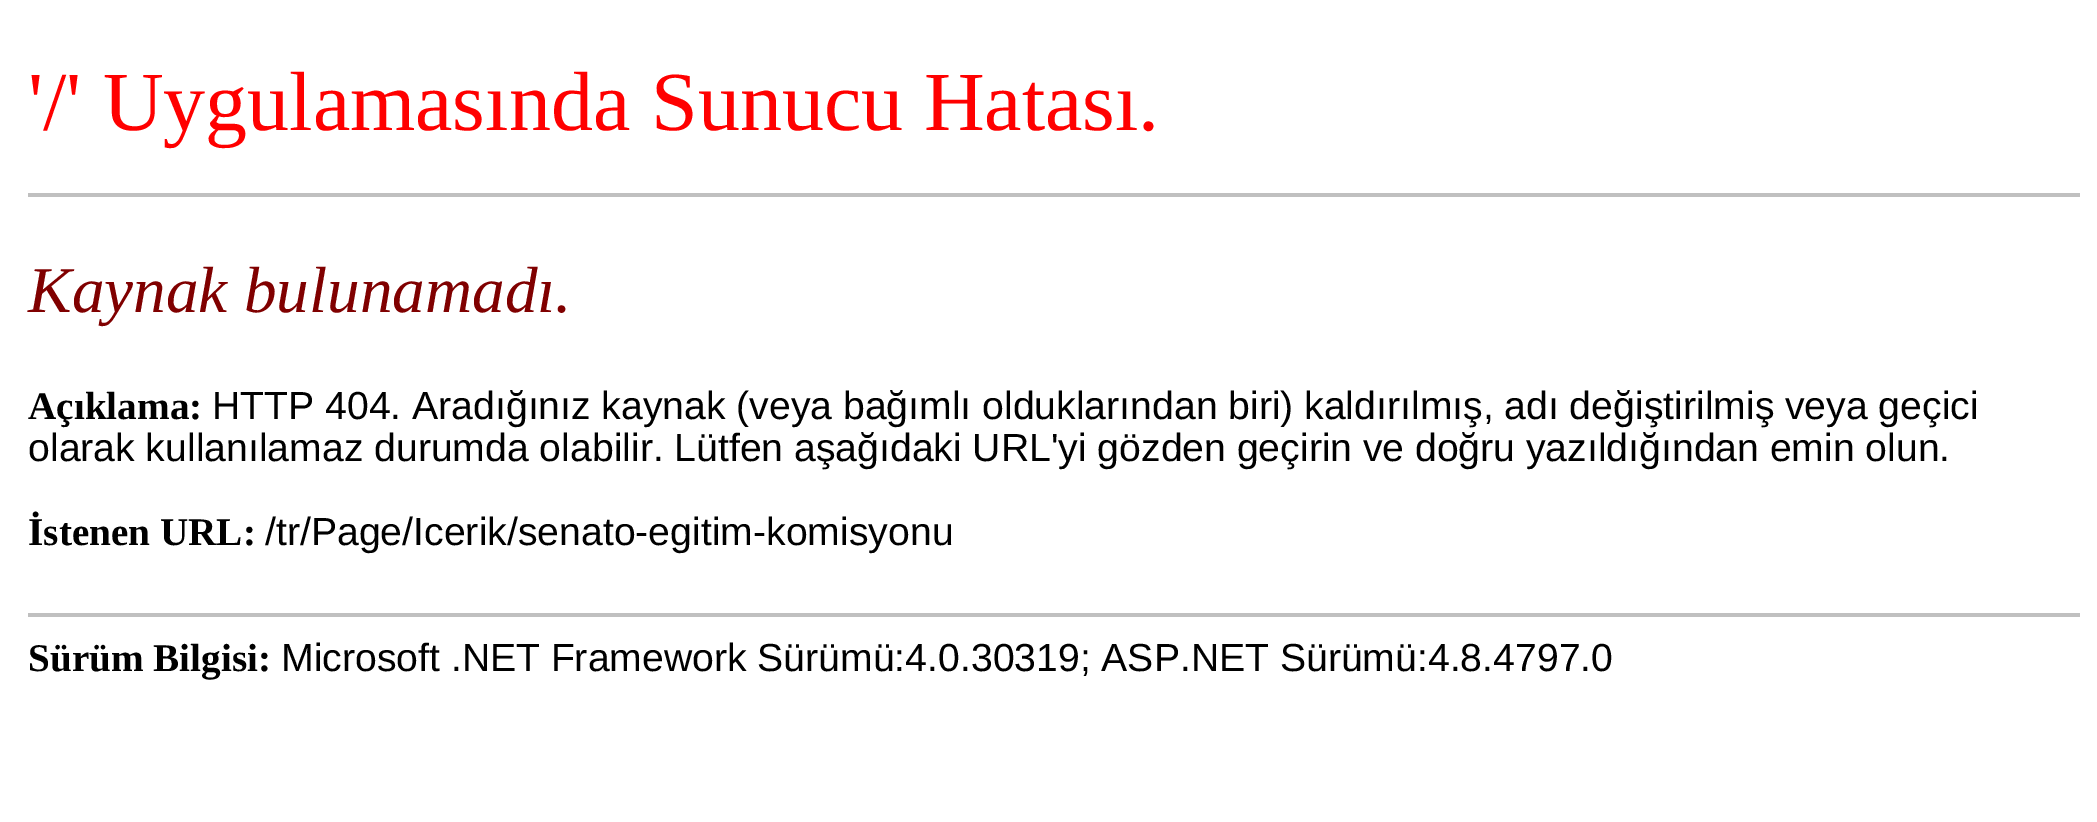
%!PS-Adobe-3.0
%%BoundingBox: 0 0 2097 822
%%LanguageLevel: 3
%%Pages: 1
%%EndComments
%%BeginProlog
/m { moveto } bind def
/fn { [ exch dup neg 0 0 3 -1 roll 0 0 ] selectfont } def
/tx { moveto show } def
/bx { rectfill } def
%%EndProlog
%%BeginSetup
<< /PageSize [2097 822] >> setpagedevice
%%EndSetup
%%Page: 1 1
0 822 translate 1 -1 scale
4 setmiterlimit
1 setgray
0 0 2097 822 bx
/LiberationSerif-Regular 84 fn
1 0 0 setrgbcolor
('/' Uygulamasında Sunucu Hatası.) 28 130 tx
0.753 setgray
28 193 2052 4 bx
/LiberationSerif-Italic 65.25 fn
0.502 0 0 setrgbcolor
(Kaynak bulunamadı.) 28 312 tx
/LiberationSerif-Bold 39.2 fn
0 setgray
(Açıklama:) 28 419 tx
/LiberationSans-Regular 39.2 fn
212 419 m -0.2 0 32 (HTTP 404. Aradığınız kaynak \(veya bağımlı olduklarından biri\) kaldırılmış, adı değiştirilmiş veya geçici) widthshow
28 461 m -0.2 0 32 (olarak kullanılamaz durumda olabilir. Lütfen aşağıdaki URL'yi gözden geçirin ve doğru yazıldığından emin olun.) widthshow
/LiberationSerif-Bold 39.2 fn
(İstenen URL:) 28 545 tx
/LiberationSans-Regular 39.2 fn
(/tr/Page/Icerik/senato-egitim-komisyonu) 265 545 tx
0.753 setgray
28 613 2052 4 bx
/LiberationSerif-Bold 39.2 fn
0 setgray
(Sürüm Bilgisi:) 28 671 tx
/LiberationSans-Regular 39.2 fn
281 671 m -0.25 0 32 (Microsoft .NET Framework Sürümü:4.0.30319; ASP.NET Sürümü:4.8.4797.0) widthshow
showpage
%%EOF
